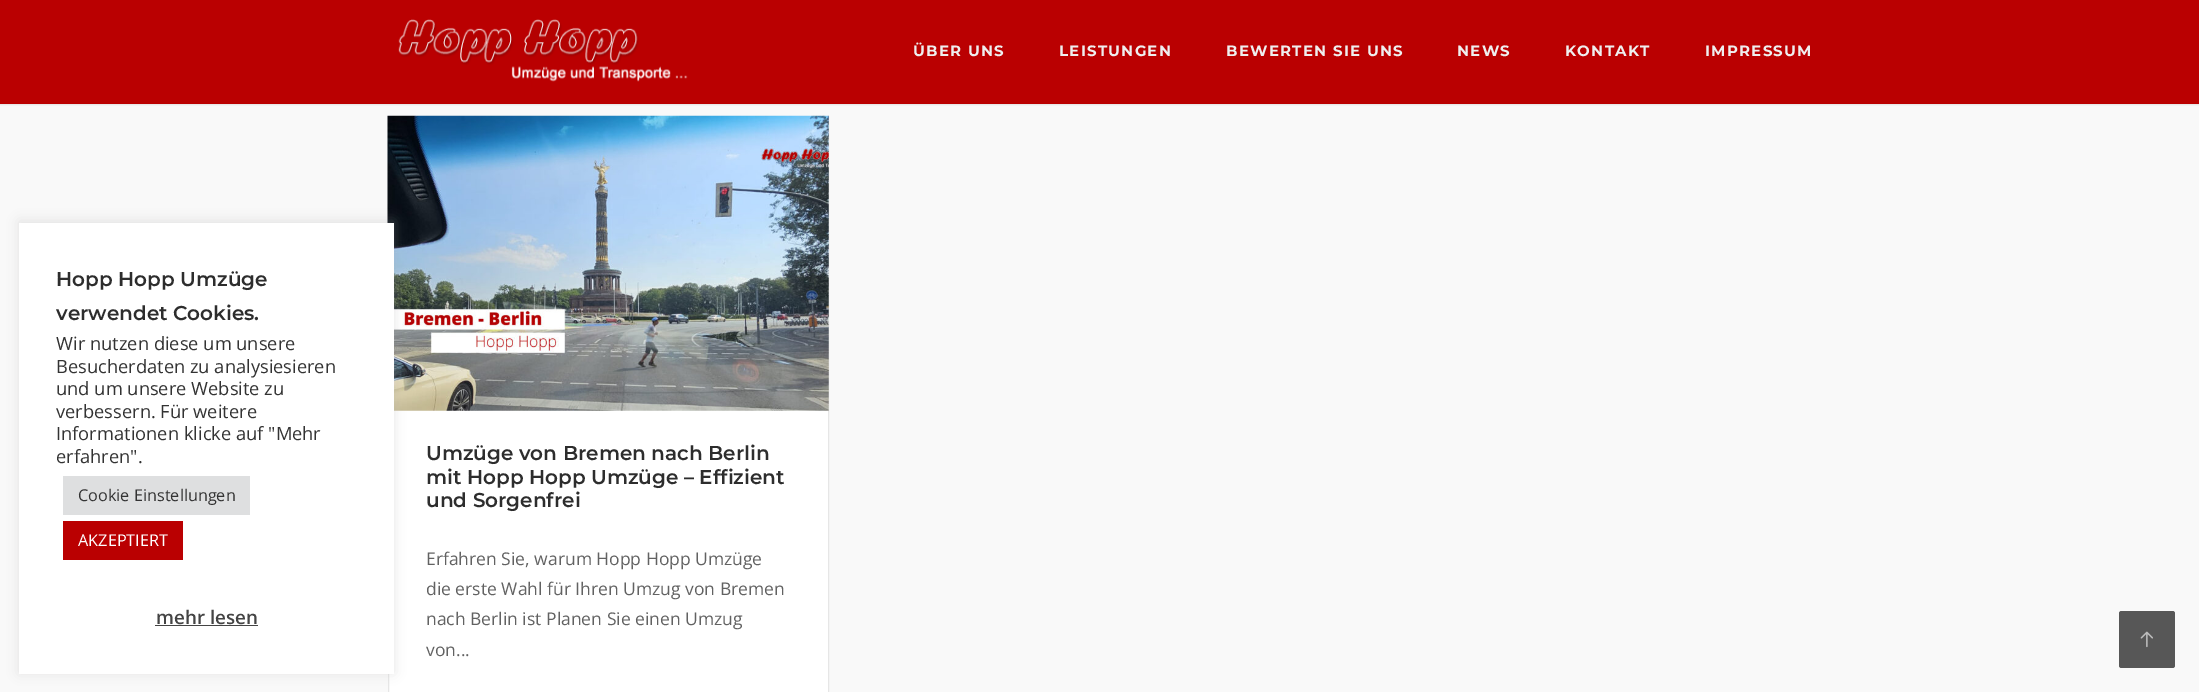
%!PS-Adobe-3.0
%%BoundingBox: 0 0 2199 692
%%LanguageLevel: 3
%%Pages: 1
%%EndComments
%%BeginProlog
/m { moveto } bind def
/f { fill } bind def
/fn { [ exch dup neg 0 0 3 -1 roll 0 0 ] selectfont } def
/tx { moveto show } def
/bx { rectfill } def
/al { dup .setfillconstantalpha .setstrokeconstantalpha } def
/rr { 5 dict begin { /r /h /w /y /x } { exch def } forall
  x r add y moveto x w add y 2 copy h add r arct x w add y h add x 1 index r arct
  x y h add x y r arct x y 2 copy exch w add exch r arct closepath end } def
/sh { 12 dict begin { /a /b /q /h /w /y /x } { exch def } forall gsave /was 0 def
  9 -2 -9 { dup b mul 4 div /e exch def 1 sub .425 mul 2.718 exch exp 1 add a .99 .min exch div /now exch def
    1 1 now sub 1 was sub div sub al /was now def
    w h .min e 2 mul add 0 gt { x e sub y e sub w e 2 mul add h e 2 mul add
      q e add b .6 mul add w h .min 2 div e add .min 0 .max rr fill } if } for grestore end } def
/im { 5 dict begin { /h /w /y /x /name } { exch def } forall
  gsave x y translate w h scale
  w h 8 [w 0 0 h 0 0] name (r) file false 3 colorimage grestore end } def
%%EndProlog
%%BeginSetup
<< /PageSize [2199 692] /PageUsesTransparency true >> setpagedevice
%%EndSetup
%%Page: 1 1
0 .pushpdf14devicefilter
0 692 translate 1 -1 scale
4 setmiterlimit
0.976 setgray
0 0 2199 692 bx
1 setgray
389 410 439 282 bx
0.902 setgray
388.5 116.5 440 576 rectstroke
(image1.raw) 387 115 442 296 im
0.675 0.671 0.671 setrgbcolor
19 221 375 452 0 6 0.3 sh
1 setgray
19 223 375 451 bx
/Montserrat-SemiBold 20 fn
0.176 setgray
(Hopp Hopp Umzüge) 56 286 tx
(verwendet Cookies.) 56 320 tx
/OpenSans-Regular 18.3 fn
0.2 setgray
(Wir nutzen diese um unsere) 56 350 tx
(Besucherdaten zu analysiesieren) 56 373 tx
(und um unsere Website zu) 56 395 tx
(verbessern. Für weitere) 56 418 tx
(Informationen klicke auf "Mehr) 56 440 tx
(erfahren".) 56 463 tx
0.871 0.875 0.878 setrgbcolor
63 476 187 39 bx
/OpenSans-Regular 16.25 fn
0.2 setgray
(Cookie Einstellungen) 78 501 tx
0.729 0 0.004 setrgbcolor
63 521 120 39 bx
1 setgray
(AKZEPTIERT) 78 546 tx
/OpenSans-SemiBold 18.75 fn
0.267 setgray
(mehr lesen) 156 624 tx
155 625 103 1 bx
0 setgray
0 1 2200 104 0 0.5 0.07 sh
0.729 0 0.004 setrgbcolor
0 0 2199 104 bx
(image0.raw) 398 19 290 63 im
/Montserrat-Bold 15 fn
0.937 setgray
913 56 m 1.25 0 (ÜBER UNS) ashow
1059 56 m 1.25 0 (LEISTUNGEN) ashow
1226 56 m 1.25 0 (BEWERTEN SIE UNS) ashow
1457 56 m 1.25 0 (NEWS) ashow
1565 56 m 1.25 0 (KONTAKT) ashow
1705 56 m 1.25 0 (IMPRESSUM) ashow
/Montserrat-SemiBold 20 fn
0.176 setgray
(Umzüge von Bremen nach Berlin) 426 460 tx
(mit Hopp Hopp Umzüge – Effizient) 426 484 tx
(und Sorgenfrei) 426 507 tx
/OpenSans-Regular 17.5 fn
0.384 setgray
(Erfahren Sie, warum Hopp Hopp Umzüge) 426 565 tx
(die erste Wahl für Ihren Umzug von Bremen) 426 595 tx
(nach Berlin ist Planen Sie einen Umzug) 426 625 tx
(von...) 426 656 tx
0.341 setgray
2119 611 56 57 2.5 rr f
(image2.raw) 2140 631 13 17 im
.poppdf14devicefilter showpage
%%EOF
